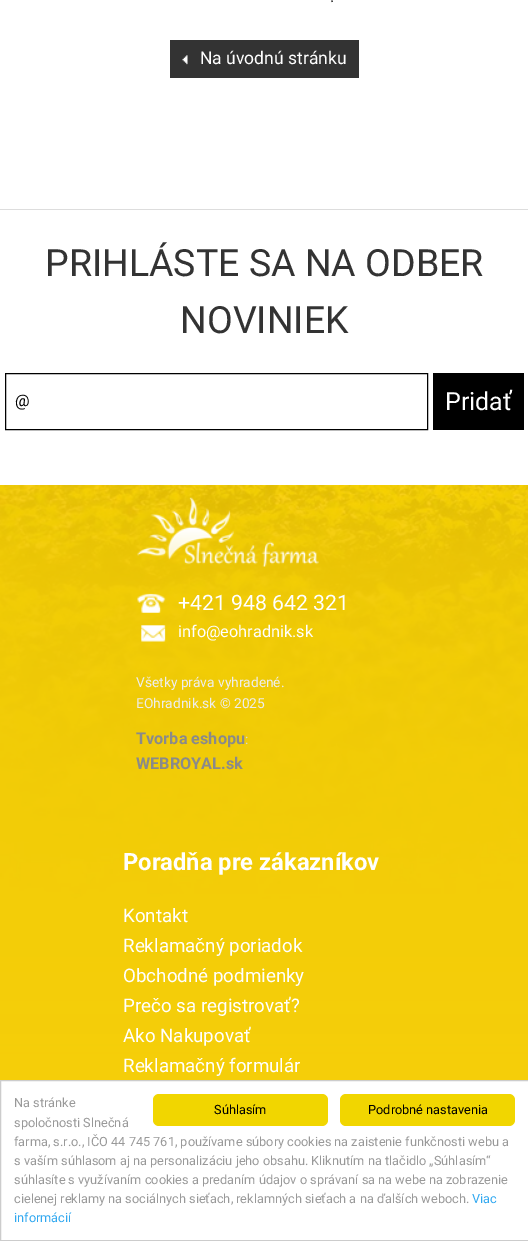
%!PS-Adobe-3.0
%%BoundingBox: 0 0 528 1241
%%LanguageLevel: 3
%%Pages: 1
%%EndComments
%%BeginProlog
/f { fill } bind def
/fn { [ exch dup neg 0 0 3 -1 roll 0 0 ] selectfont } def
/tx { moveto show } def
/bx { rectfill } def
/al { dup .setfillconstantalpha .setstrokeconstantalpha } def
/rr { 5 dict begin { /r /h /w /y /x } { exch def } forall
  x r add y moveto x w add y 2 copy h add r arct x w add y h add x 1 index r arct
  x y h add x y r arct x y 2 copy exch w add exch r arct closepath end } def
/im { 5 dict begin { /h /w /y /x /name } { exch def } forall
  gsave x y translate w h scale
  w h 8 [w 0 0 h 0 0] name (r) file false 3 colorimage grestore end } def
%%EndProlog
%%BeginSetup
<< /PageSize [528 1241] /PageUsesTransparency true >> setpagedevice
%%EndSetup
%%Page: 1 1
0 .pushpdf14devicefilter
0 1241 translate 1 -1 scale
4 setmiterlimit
1 setgray
0 0 528 1241 bx
(image0.raw) 0 485 528 595 im
/Roboto-Regular 16.25 fn
0.141 setgray
(.) 330 2 tx
0.2 setgray
170 40 189 38 bx
(image1.raw) 182 55 6 10 im
/Roboto-Regular 17.5 fn
1 setgray
(Na úvodnú stránku) 200 64 tx
0.867 setgray
0 209 528 1 bx
/Roboto-Regular 37.5 fn
0.2 setgray
(PRIHLÁSTE SA NA ODBER) 45 276 tx
(NOVINIEK) 180 333 tx
0 setgray
5.5 373.5 422 56 rectstroke
/Roboto-Regular 16.25 fn
(@) 15 406 tx
433 373 91 57 bx
/Roboto-Regular 25 fn
1 setgray
(Pridať) 445 410 tx
0.8 al
1 0.8 0 setrgbcolor
0 485 528 595 bx
1 al
(image2.raw) 137 497 182 70 im
(image3.raw) 137 593 29 20 im
/Roboto-Regular 21.25 fn
1 setgray
(+421 948 642 321) 178 610 tx
(image4.raw) 141 625 25 17 im
/Roboto-Regular 16.25 fn
(info@eohradnik.sk) 178 637 tx
/Roboto-Regular 13.75 fn
0.929 setgray
(Všetky práva vyhradené.) 136 687 tx
(EOhradnik.sk © 2025) 136 708 tx
/Roboto-Bold 16.25 fn
0.541 setgray
(Tvorba eshopu) 136 744 tx
/Roboto-Regular 13.75 fn
0.839 setgray
(:) 245 744 tx
/Roboto-Bold 16.25 fn
0.541 setgray
(WEBROYAL.sk) 136 769 tx
/Roboto-Bold 23.75 fn
1 setgray
(Poradňa pre zákazníkov) 123 870 tx
/Roboto-Regular 18.75 fn
(Kontakt) 123 922 tx
(Reklamačný poriadok) 123 952 tx
(Obchodné podmienky) 123 982 tx
(Prečo sa registrovať?) 123 1012 tx
(Ako Nakupovať) 123 1042 tx
(Reklamačný formulár) 123 1072 tx
0.8 setgray
0.5 1080.5 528 160 rectstroke
/Roboto-Regular 12.75 fn
0.6 setgray
(Na stránke) 14 1107 tx
(spoločnosti Slnečná) 14 1127 tx
(farma, s.r.o., IČO 44 745 761, používame súbory cookies na zaistenie funkčnosti webu a) 14 1146 tx
(s vaším súhlasom aj na personalizáciu jeho obsahu. Kliknutím na tlačidlo „Súhlasím“) 14 1165 tx
(súhlasíte s využívaním cookies a predaním údajov o správaní sa na webe na zobrazenie) 14 1184 tx
(cielenej reklamy na sociálnych sieťach, reklamných sieťach a na ďalších weboch.) 14 1203 tx
0.192 0.659 0.941 setrgbcolor
(Viac) 472 1203 tx
(informácií) 14 1222 tx
0.945 0.839 0 setrgbcolor
153 1094 175 32 6 rr f
0 setgray
(Súhlasím) 214 1114 tx
0.945 0.839 0 setrgbcolor
340 1094 175 32 6 rr f
0 setgray
(Podrobné nastavenia) 368 1114 tx
.poppdf14devicefilter showpage
%%EOF
